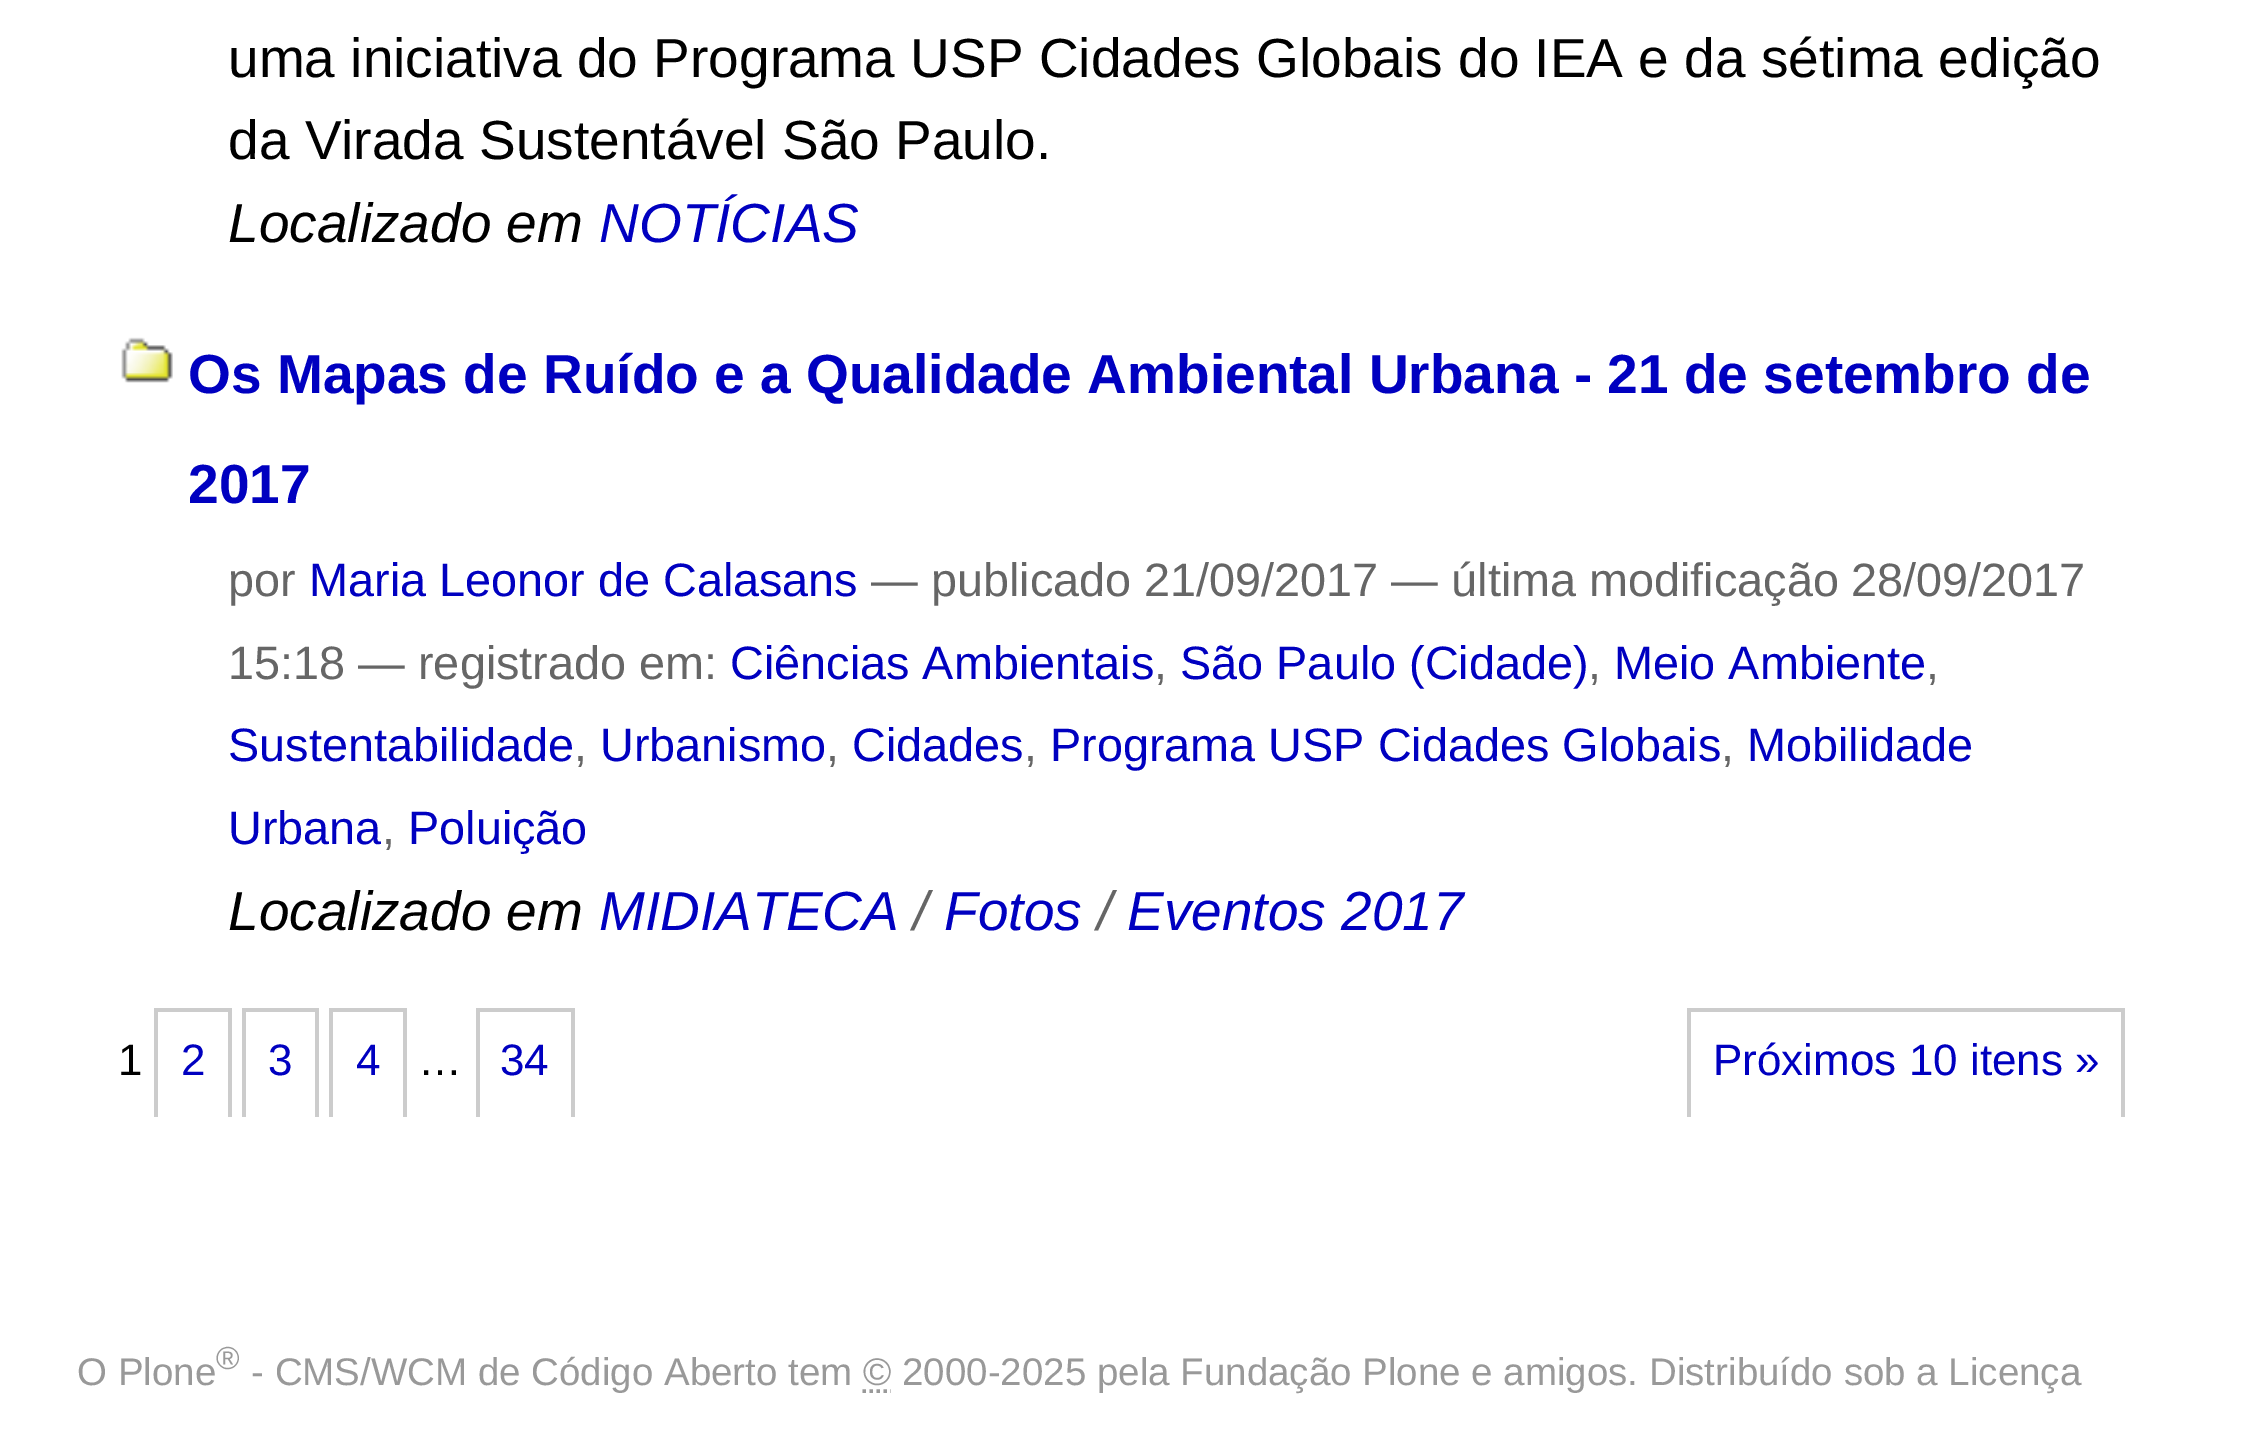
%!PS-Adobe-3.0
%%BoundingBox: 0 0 2242 1432
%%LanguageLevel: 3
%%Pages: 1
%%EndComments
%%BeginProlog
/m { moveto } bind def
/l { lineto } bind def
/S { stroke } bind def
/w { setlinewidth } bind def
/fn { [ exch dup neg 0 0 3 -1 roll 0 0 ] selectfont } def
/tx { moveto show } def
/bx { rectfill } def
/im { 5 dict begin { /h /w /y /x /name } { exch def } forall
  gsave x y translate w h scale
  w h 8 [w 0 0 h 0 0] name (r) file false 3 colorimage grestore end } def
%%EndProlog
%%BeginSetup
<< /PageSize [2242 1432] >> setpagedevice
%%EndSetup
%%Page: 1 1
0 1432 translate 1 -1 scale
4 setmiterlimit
1 setgray
0 0 2242 1432 bx
/LiberationSans-Regular 55.05 fn
0 setgray
(uma iniciativa do Programa USP Cidades Globais do IEA e da sétima edição) 228 77 tx
(da Virada Sustentável São Paulo.) 228 159 tx
/LiberationSans-Italic 55.05 fn
(Localizado em) 228 242 tx
0 0 0.753 setrgbcolor
(NOTÍCIAS) 599 242 tx
(image0.raw) 121 337 52 46 im
/LiberationSans-Bold 55.05 fn
(Os Mapas de Ruído e a Qualidade Ambiental Urbana - 21 de setembro de) 188 393 tx
(2017) 188 503 tx
/LiberationSans-Regular 46.8 fn
0.4 setgray
(por) 228 596 tx
0 0 0.753 setrgbcolor
(Maria Leonor de Calasans) 309 596 tx
0.4 setgray
(— publicado 21/09/2017 — última modificação) 871 596 tx
(28/09/2017) 1851 596 tx
(15:18 — registrado em:) 228 679 tx
0 0 0.753 setrgbcolor
(Ciências Ambientais) 730 679 tx
0.4 setgray
(,) 1154 679 tx
0 0 0.753 setrgbcolor
(São Paulo \(Cidade\)) 1180 679 tx
0.4 setgray
(,) 1588 679 tx
0 0 0.753 setrgbcolor
(Meio Ambiente) 1614 679 tx
0.4 setgray
(,) 1926 679 tx
0 0 0.753 setrgbcolor
(Sustentabilidade) 228 761 tx
0.4 setgray
(,) 574 761 tx
0 0 0.753 setrgbcolor
(Urbanismo) 600 761 tx
0.4 setgray
(,) 826 761 tx
0 0 0.753 setrgbcolor
(Cidades) 852 761 tx
0.4 setgray
(,) 1024 761 tx
0 0 0.753 setrgbcolor
(Programa USP Cidades Globais) 1050 761 tx
0.4 setgray
(,) 1721 761 tx
0 0 0.753 setrgbcolor
(Mobilidade) 1747 761 tx
(Urbana) 228 844 tx
0.4 setgray
(,) 382 844 tx
0 0 0.753 setrgbcolor
(Poluição) 408 844 tx
/LiberationSans-Italic 55.05 fn
0 setgray
(Localizado em) 228 930 tx
0 0 0.753 setrgbcolor
(MIDIATECA) 599 930 tx
0.4 setgray
(/) 913 930 tx
0 0 0.753 setrgbcolor
(Fotos) 944 930 tx
0.4 setgray
(/) 1097 930 tx
0 0 0.753 setrgbcolor
(Eventos 2017) 1127 930 tx
/LiberationSans-Regular 44 fn
0 setgray
(1) 118 1075 tx
0.8 setgray
154 1008 77 4 bx
228 1008 4 109 bx
154 1008 4 109 bx
0 0 0.753 setrgbcolor
(2) 181 1075 tx
0.8 setgray
242 1008 77 4 bx
315 1008 4 109 bx
242 1008 4 109 bx
0 0 0.753 setrgbcolor
(3) 268 1075 tx
0.8 setgray
329 1008 77 4 bx
403 1008 4 109 bx
329 1008 4 109 bx
0 0 0.753 setrgbcolor
(4) 356 1075 tx
0 setgray
(…) 418 1075 tx
0.8 setgray
476 1008 98 4 bx
571 1008 4 109 bx
476 1008 4 109 bx
0 0 0.753 setrgbcolor
(34) 500 1075 tx
0.8 setgray
1687 1008 438 4 bx
2121 1008 4 109 bx
1687 1008 4 109 bx
0 0 0.753 setrgbcolor
(Próximos 10 itens ») 1713 1075 tx
/LiberationSans-Regular 38.5 fn
0.6 setgray
(O Plone) 77 1385 tx
/LiberationSans-Regular 32 fn
(®) 216 1369 tx
/LiberationSans-Regular 38.5 fn
(- CMS/WCM de Código Aberto tem © 2000-2025 pela Fundação Plone e amigos. Distribuído sob a Licença) 251 1385 tx
3.5 w
[3.5 3.5] 0 setdash
862.5 1391 m 891 1391 l S
showpage
%%EOF
